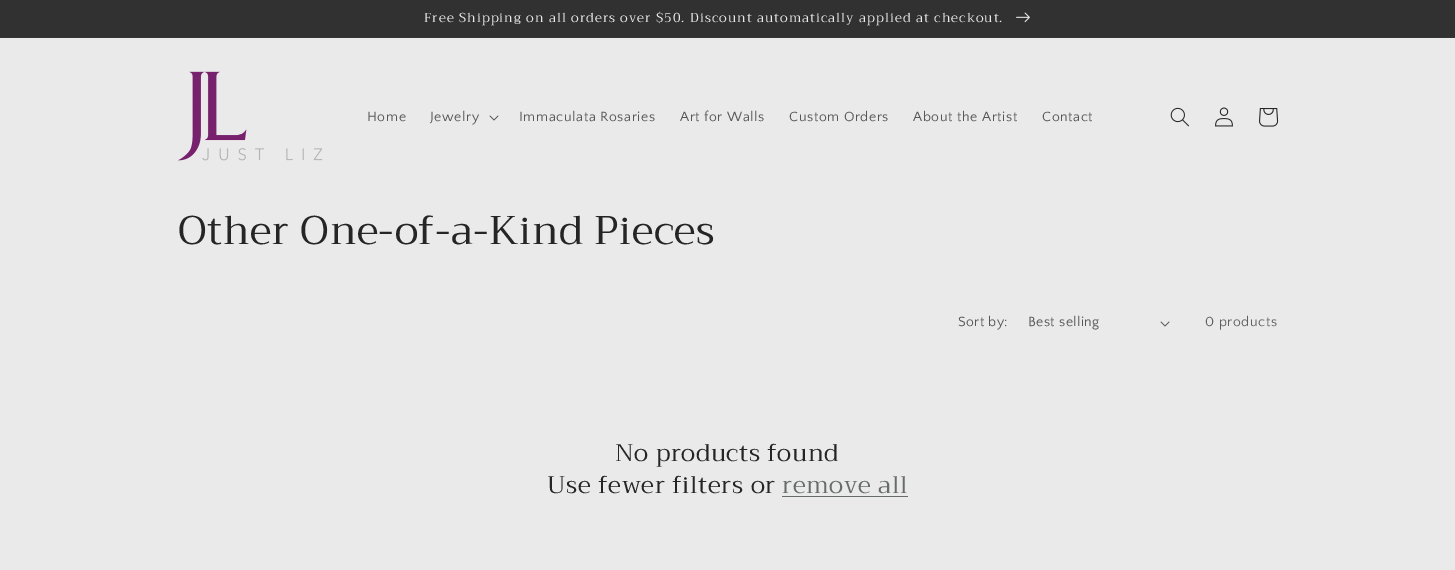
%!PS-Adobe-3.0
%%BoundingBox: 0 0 1455 570
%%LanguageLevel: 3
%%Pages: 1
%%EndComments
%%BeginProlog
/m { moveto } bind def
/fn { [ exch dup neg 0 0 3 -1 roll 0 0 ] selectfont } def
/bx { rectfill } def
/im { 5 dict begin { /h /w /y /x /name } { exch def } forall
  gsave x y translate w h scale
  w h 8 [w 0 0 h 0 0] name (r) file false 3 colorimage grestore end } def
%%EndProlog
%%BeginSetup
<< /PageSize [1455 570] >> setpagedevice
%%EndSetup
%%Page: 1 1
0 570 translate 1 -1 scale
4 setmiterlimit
0.918 setgray
0 0 1455 570 bx
0.208 setgray
0 37 1455 1 bx
0.192 setgray
0 0 1455 37 bx
/Trirong-Regular 13 fn
0.918 setgray
424 22 m 1 0 (Free Shipping on all orders over $50. Discount automatically applied at checkout.) ashow
(image0.raw) 1016 12 14 11 im
(image1.raw) 178 71 145 90 im
/QuattrocentoSans-Regular 14 fn
0.337 setgray
367 121 m 0.6 0 (Home) ashow
430 121 m 0.6 0 (Jewelry) ashow
(image2.raw) 489 115 10 6 im
519 121 m 0.6 0 (Immaculata Rosaries) ashow
680 121 m 0.6 0 (Art for Walls) ashow
789 121 m 0.6 0 (Custom Orders) ashow
913 121 m 0.6 0 (About the Artist) ashow
1042 121 m 0.6 0 (Contact) ashow
(image3.raw) 1170 107 19 20 im
(image4.raw) 1215 107 18 20 im
(image5.raw) 1259 108 20 19 im
/Trirong-Regular 40 fn
0.145 setgray
178 244 m 0.6 0 (Other One-of-a-Kind Pieces) ashow
/QuattrocentoSans-Regular 14 fn
0.337 setgray
958 326 m 0.4 0 (Sort by:) ashow
1028 326 m 0.4 0 (Best selling) ashow
(image2.raw) 1160 321 10 6 im
0.376 setgray
1205 326 m 0.6 0 (0 products) ashow
/Trirong-Regular 24 fn
0.145 setgray
615 461 m 0.6 0 (No products found) ashow
547 493 m 0.6 0 (Use fewer filters or) ashow
0.404 0.424 0.42 setrgbcolor
782 493 m 0.6 0 (remove all) ashow
782 496 126 1 bx
showpage
%%EOF
